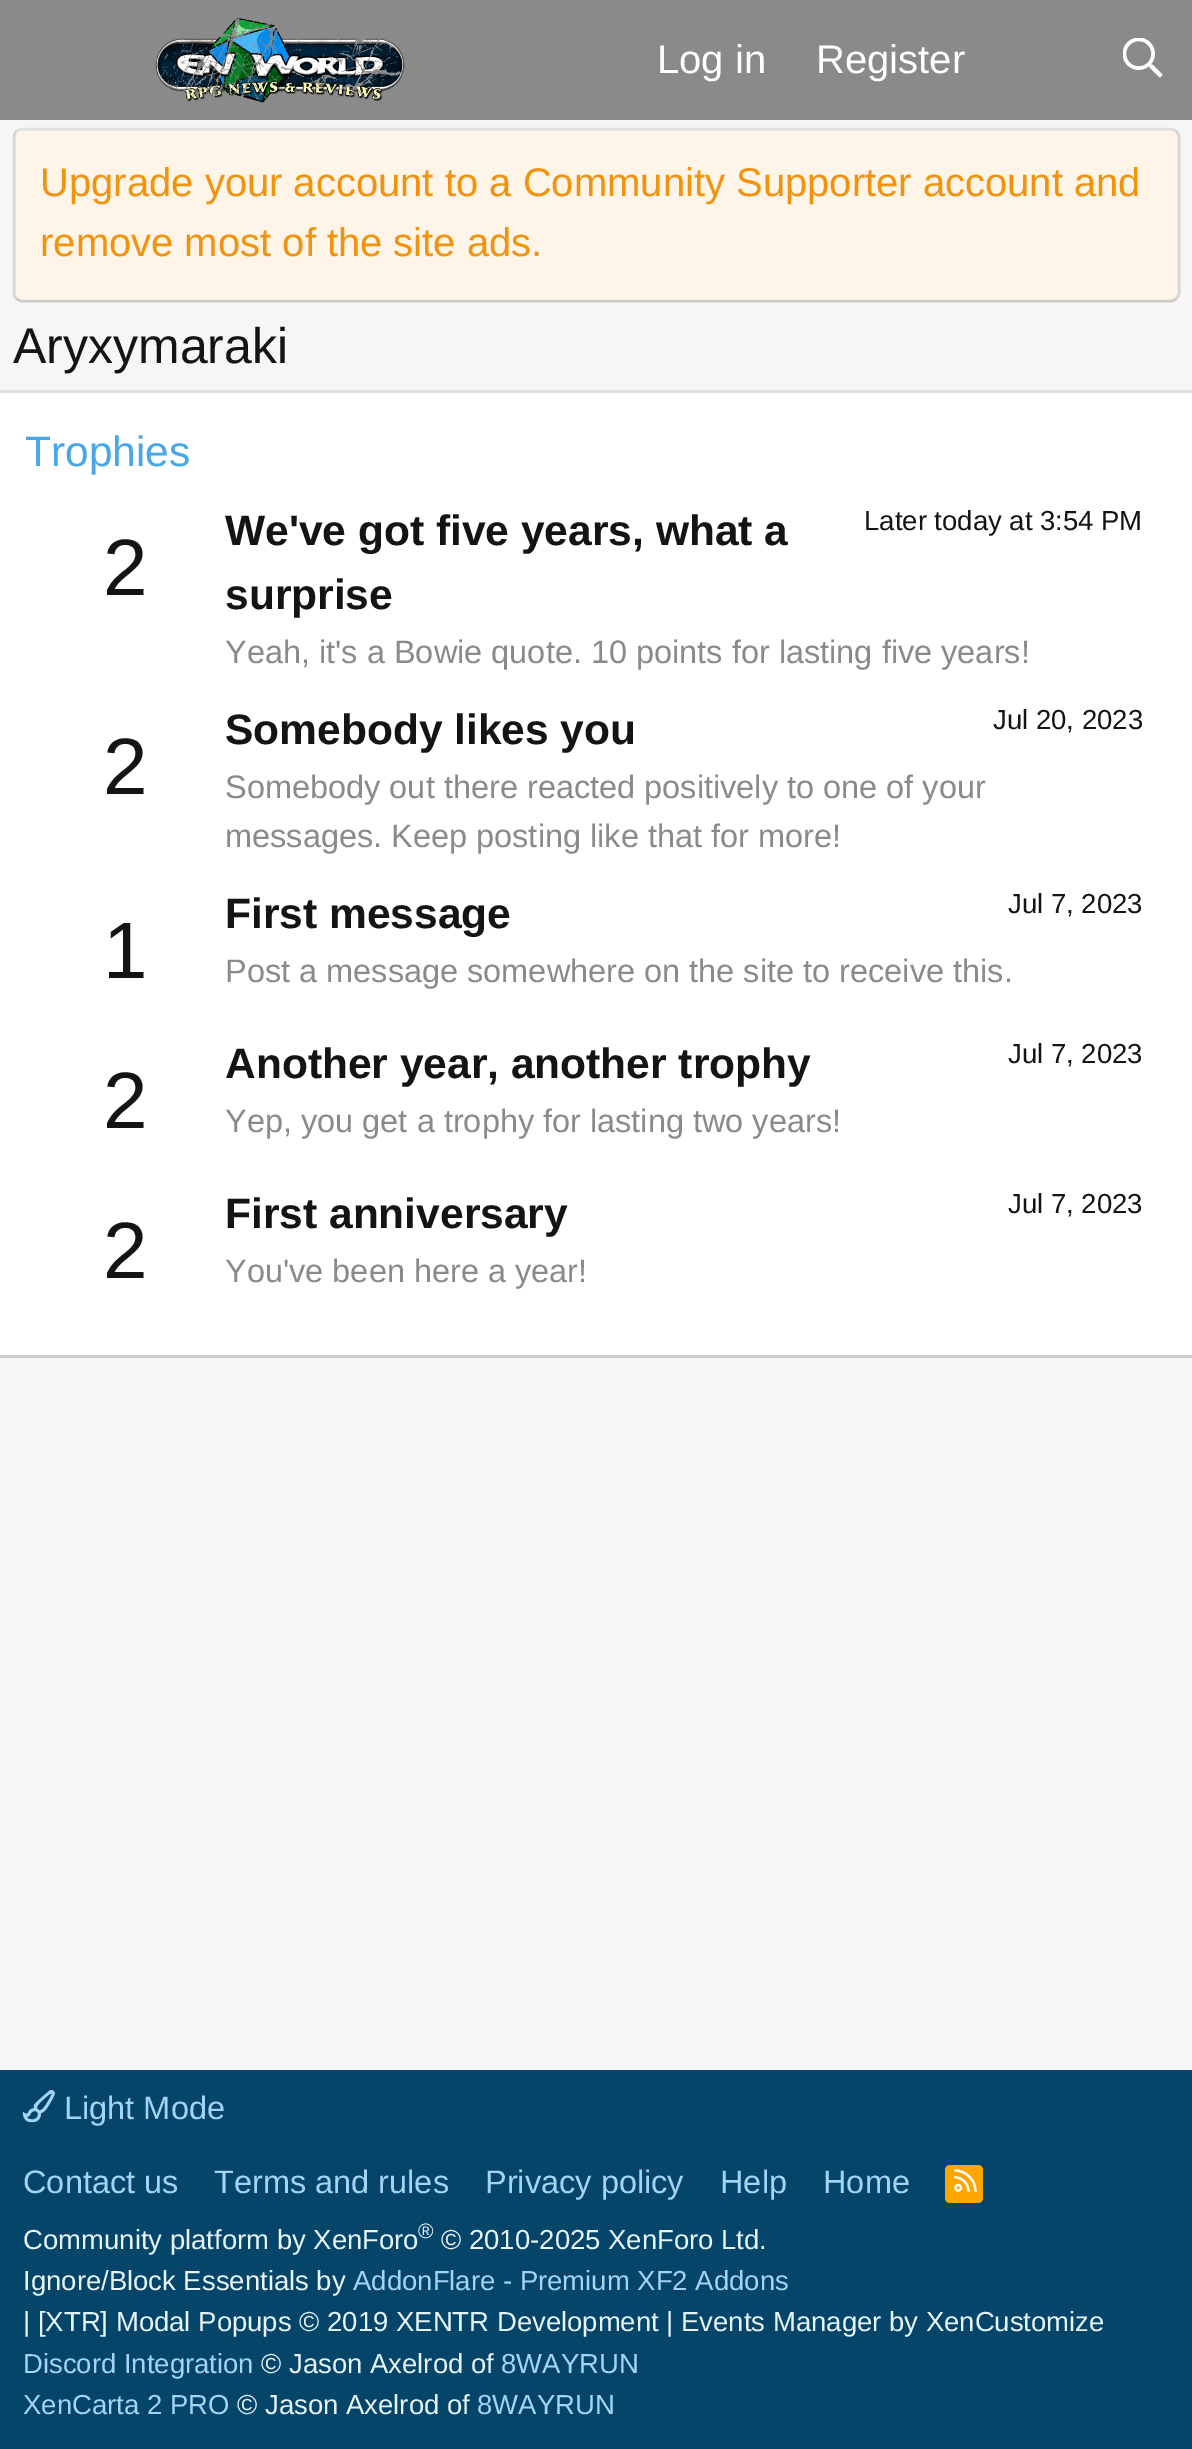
%!PS-Adobe-3.0
%%BoundingBox: 0 0 1192 2449
%%LanguageLevel: 3
%%Pages: 1
%%EndComments
%%BeginProlog
/m { moveto } bind def
/l { lineto } bind def
/c { curveto } bind def
/f { fill } bind def
/S { stroke } bind def
/w { setlinewidth } bind def
/fn { [ exch dup neg 0 0 3 -1 roll 0 0 ] selectfont } def
/tx { moveto show } def
/bx { rectfill } def
/rr { 5 dict begin { /r /h /w /y /x } { exch def } forall
  x r add y moveto x w add y 2 copy h add r arct x w add y h add x 1 index r arct
  x y h add x y r arct x y 2 copy exch w add exch r arct closepath end } def
/im { 5 dict begin { /h /w /y /x /name } { exch def } forall
  gsave x y translate w h scale
  w h 8 [w 0 0 h 0 0] name (r) file false 3 colorimage grestore end } def
%%EndProlog
%%BeginSetup
<< /PageSize [1192 2449] >> setpagedevice
%%EndSetup
%%Page: 1 1
0 2449 translate 1 -1 scale
4 setmiterlimit
0.965 setgray
0 0 1192 2449 bx
0.541 setgray
0 0 1192 120 bx
(image0.raw) 155 18 250 85 im
/LiberationSans-Regular 40 fn
1 setgray
(Log in) 657 73 tx
(Register) 816 73 tx
(image1.raw) 1123 38 40 40 im
0.996 0.957 0.906 setrgbcolor
13 128 1167 175 10 rr f
0.878 setgray
2.5 w
16.5 131.5 m 18 129.5 20 129 22.5 129 c 1170 129 l 1172.5 129 1174.5 129.5 1176 131.5 c S
0.839 setgray
1176 131.5 m 1178 133 1179 135 1179 137.5 c 1179 292.5 l 1179 295 1178 297 1176 298.5 c S
0.8 setgray
1176 298.5 m 1174.5 300.5 1172.5 301 1170 301 c 22.5 301 l 20 301 18 300.5 16.5 298.5 c S
0.839 setgray
16.5 298.5 m 14.5 297 14 295 14 292.5 c 14 137.5 l 14 135 14.5 133 16.5 131.5 c S
0.949 0.576 0.051 setrgbcolor
(Upgrade your account to a Community Supporter account and) 40 196 tx
(remove most of the site ads.) 40 256 tx
/LiberationSans-Regular 50 fn
0.078 setgray
(Aryxymaraki) 13 363 tx
1 setgray
0 393 1192 962 bx
0.878 setgray
0 390 1192 3 bx
0.8 setgray
0 1355 1192 3 bx
/LiberationSans-Regular 42.5 fn
0.278 0.655 0.922 setrgbcolor
(Trophies) 25 466 tx
/LiberationSans-Regular 80 fn
0.078 setgray
(2) 103 595 tx
/LiberationSans-Bold 42.5 fn
(We've got five years, what a) 225 545 tx
(surprise) 225 609 tx
/LiberationSans-Regular 27.5 fn
(Later today at 3:54 PM) 864 530 tx
/LiberationSans-Regular 32.5 fn
0.541 setgray
(Yeah, it's a Bowie quote. 10 points for lasting five years!) 225 663 tx
/LiberationSans-Regular 80 fn
0.078 setgray
(2) 103 794 tx
/LiberationSans-Bold 42.5 fn
(Somebody likes you) 225 744 tx
/LiberationSans-Regular 27.5 fn
(Jul 20, 2023) 993 729 tx
/LiberationSans-Regular 32.5 fn
0.541 setgray
(Somebody out there reacted positively to one of your) 225 798 tx
(messages. Keep posting like that for more!) 225 847 tx
/LiberationSans-Regular 80 fn
0.078 setgray
(1) 103 978 tx
/LiberationSans-Bold 42.5 fn
(First message) 225 928 tx
/LiberationSans-Regular 27.5 fn
(Jul 7, 2023) 1008 913 tx
/LiberationSans-Regular 32.5 fn
0.541 setgray
(Post a message somewhere on the site to receive this.) 225 982 tx
/LiberationSans-Regular 80 fn
0.078 setgray
(2) 103 1128 tx
/LiberationSans-Bold 42.5 fn
(Another year, another trophy) 225 1078 tx
/LiberationSans-Regular 27.5 fn
(Jul 7, 2023) 1008 1063 tx
/LiberationSans-Regular 32.5 fn
0.541 setgray
(Yep, you get a trophy for lasting two years!) 225 1132 tx
/LiberationSans-Regular 80 fn
0.078 setgray
(2) 103 1278 tx
/LiberationSans-Bold 42.5 fn
(First anniversary) 225 1228 tx
/LiberationSans-Regular 27.5 fn
(Jul 7, 2023) 1008 1213 tx
/LiberationSans-Regular 32.5 fn
0.541 setgray
(You've been here a year!) 225 1282 tx
0.016 0.271 0.412 setrgbcolor
0 2070 1192 379 bx
(image2.raw) 22 2090 33 33 im
0.639 0.831 0.961 setrgbcolor
(Light Mode) 64 2119 tx
(Contact us) 23 2193 tx
(Terms and rules) 214 2193 tx
(Privacy policy) 485 2193 tx
(Help) 720 2193 tx
(Home) 823 2193 tx
1 0.647 0 setrgbcolor
945 2165 38 38 5 rr f
(image3.raw) 954 2169 23 23 im
/LiberationSans-Regular 27.5 fn
0.91 0.957 0.988 setrgbcolor
(Community platform by XenForo) 23 2249 tx
/LiberationSans-Regular 21 fn
(®) 418 2238 tx
/LiberationSans-Regular 27.5 fn
(© 2010-2025 XenForo Ltd.) 441 2249 tx
(Ignore/Block Essentials by) 23 2290 tx
0.639 0.831 0.961 setrgbcolor
(AddonFlare - Premium XF2 Addons) 353 2290 tx
0.91 0.957 0.988 setrgbcolor
(| [XTR] Modal Popups © 2019 XENTR Development | Events Manager by XenCustomize) 23 2331 tx
0.639 0.831 0.961 setrgbcolor
(Discord Integration) 23 2373 tx
0.91 0.957 0.988 setrgbcolor
(© Jason Axelrod of) 261 2373 tx
0.639 0.831 0.961 setrgbcolor
(8WAYRUN) 501 2373 tx
(XenCarta 2 PRO) 23 2414 tx
0.91 0.957 0.988 setrgbcolor
(© Jason Axelrod of) 237 2414 tx
0.639 0.831 0.961 setrgbcolor
(8WAYRUN) 477 2414 tx
showpage
%%EOF
